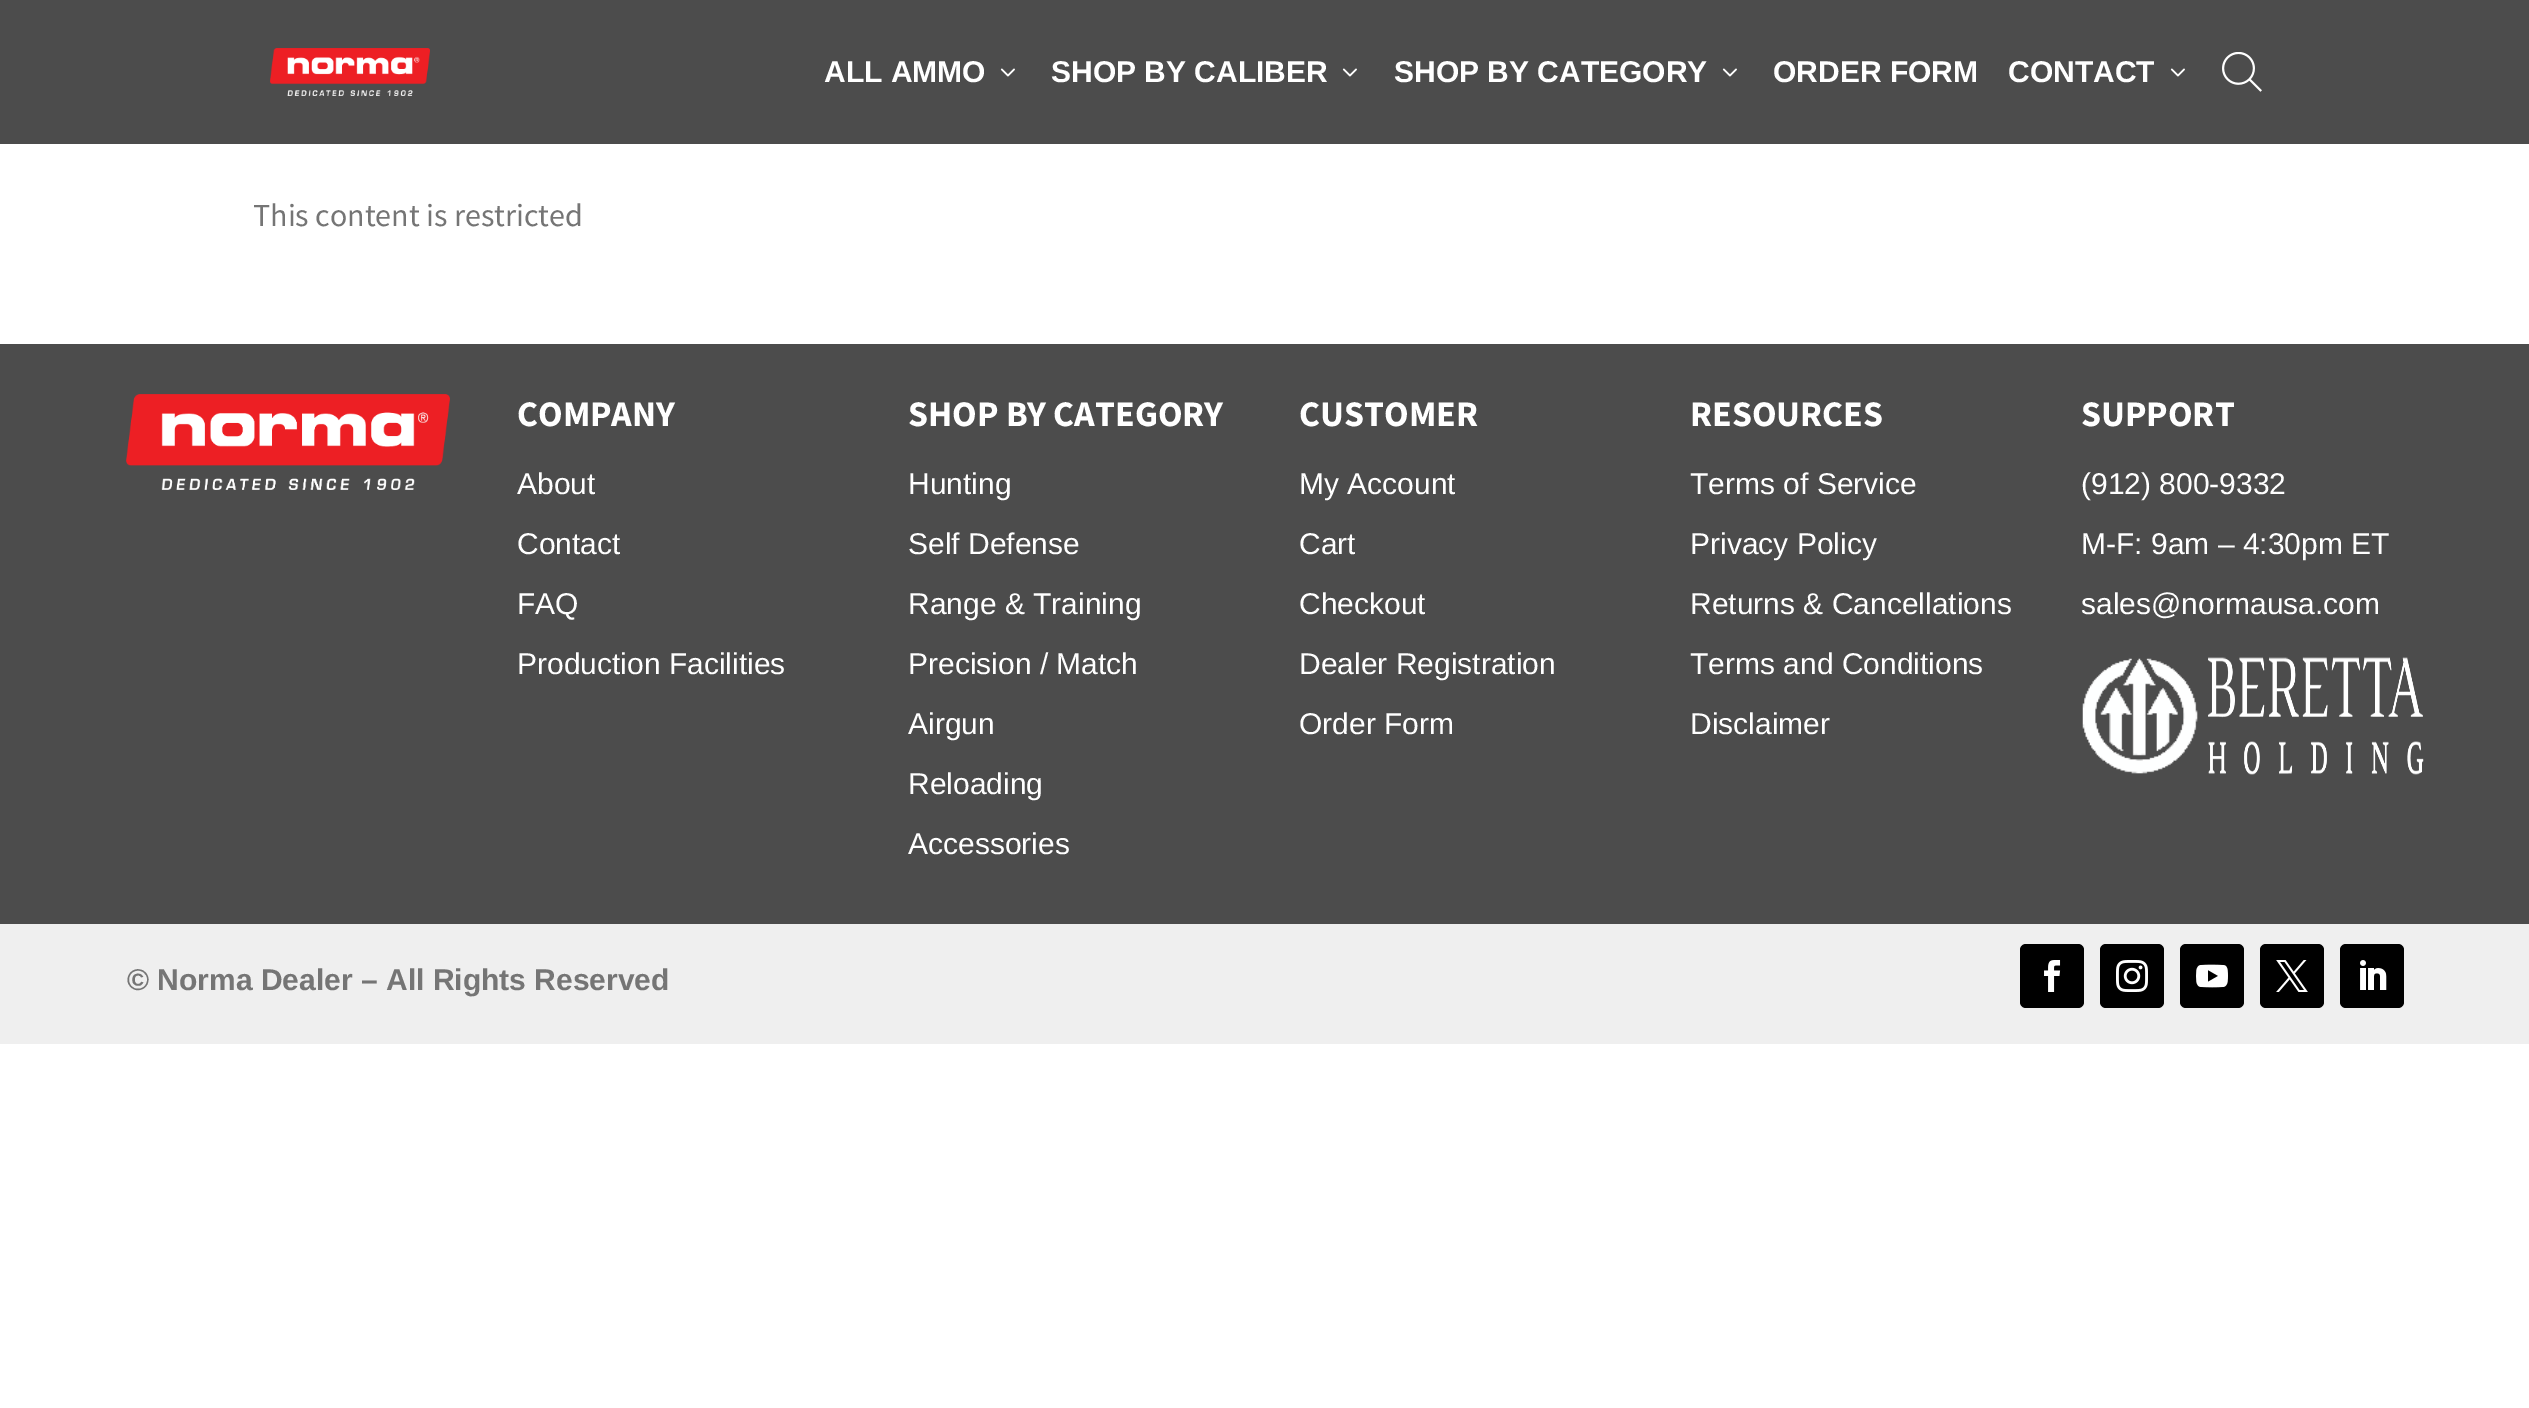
%!PS-Adobe-3.0
%%BoundingBox: 0 0 2529 1408
%%LanguageLevel: 3
%%Pages: 1
%%EndComments
%%BeginProlog
/f { fill } bind def
/fn { [ exch dup neg 0 0 3 -1 roll 0 0 ] selectfont } def
/tx { moveto show } def
/bx { rectfill } def
/rr { 5 dict begin { /r /h /w /y /x } { exch def } forall
  x r add y moveto x w add y 2 copy h add r arct x w add y h add x 1 index r arct
  x y h add x y r arct x y 2 copy exch w add exch r arct closepath end } def
/im { 5 dict begin { /h /w /y /x /name } { exch def } forall
  gsave x y translate w h scale
  w h 8 [w 0 0 h 0 0] name (r) file false 3 colorimage grestore end } def
%%EndProlog
%%BeginSetup
<< /PageSize [2529 1408] >> setpagedevice
%%EndSetup
%%Page: 1 1
0 1408 translate 1 -1 scale
4 setmiterlimit
1 setgray
0 0 2529 1408 bx
0.298 setgray
0 0 2529 144 bx
(image0.raw) 270 48 160 48 im
/LiberationSans-Bold 30 fn
1 setgray
(ALL AMMO) 824 82 tx
(image1.raw) 1000 68 15 9 im
(SHOP BY CALIBER) 1051 82 tx
(image1.raw) 1342 68 15 9 im
(SHOP BY CATEGORY) 1394 82 tx
(image1.raw) 1722 68 15 9 im
(ORDER FORM) 1773 82 tx
(CONTACT) 2008 82 tx
(image1.raw) 2170 68 15 9 im
(image2.raw) 2222 52 40 40 im
/SourceSansPro-Regular 32 fn
0.459 setgray
(This content is restricted) 253 226 tx
0.298 setgray
0 344 2529 580 bx
(image3.raw) 126 394 324 96 im
/SourceSansPro-Bold 36 fn
1 setgray
(COMPANY) 517 426 tx
/LiberationSans-Regular 30 fn
(About) 517 494 tx
(Contact) 517 554 tx
(FAQ) 517 614 tx
(Production Facilities) 517 674 tx
/SourceSansPro-Bold 36 fn
(SHOP BY CATEGORY) 908 426 tx
/LiberationSans-Regular 30 fn
(Hunting) 908 494 tx
(Self Defense) 908 554 tx
(Range & Training) 908 614 tx
(Precision / Match) 908 674 tx
(Airgun) 908 734 tx
(Reloading) 908 794 tx
(Accessories) 908 854 tx
/SourceSansPro-Bold 36 fn
(CUSTOMER) 1299 426 tx
/LiberationSans-Regular 30 fn
(My Account) 1299 494 tx
(Cart) 1299 554 tx
(Checkout) 1299 614 tx
(Dealer Registration) 1299 674 tx
(Order Form) 1299 734 tx
/SourceSansPro-Bold 36 fn
(RESOURCES) 1690 426 tx
/LiberationSans-Regular 30 fn
(Terms of Service) 1690 494 tx
(Privacy Policy) 1690 554 tx
(Returns & Cancellations) 1690 614 tx
(Terms and Conditions) 1690 674 tx
(Disclaimer) 1690 734 tx
/SourceSansPro-Bold 36 fn
(SUPPORT) 2081 426 tx
/LiberationSans-Regular 30 fn
(\(912\) 800-9332) 2081 494 tx
(M-F: 9am – 4:30pm ET) 2081 554 tx
(sales@normausa.com) 2081 614 tx
(image4.raw) 2082 658 116 116 im
(image5.raw) 2208 657 216 118 im
0.937 setgray
0 924 2529 120 bx
/LiberationSans-Bold 30 fn
0.459 setgray
(© Norma Dealer – All Rights Reserved) 127 990 tx
0 setgray
2020 944 64 64 6 rr f
(image6.raw) 2044 960 17 32 im
2100 944 64 64 6 rr f
(image7.raw) 2116 960 32 32 im
2180 944 64 64 6 rr f
(image8.raw) 2196 964 32 24 im
2260 944 64 64 6 rr f
(image9.raw) 2276 960 32 32 im
2340 944 64 64 6 rr f
(image10.raw) 2360 960 27 30 im
showpage
%%EOF
